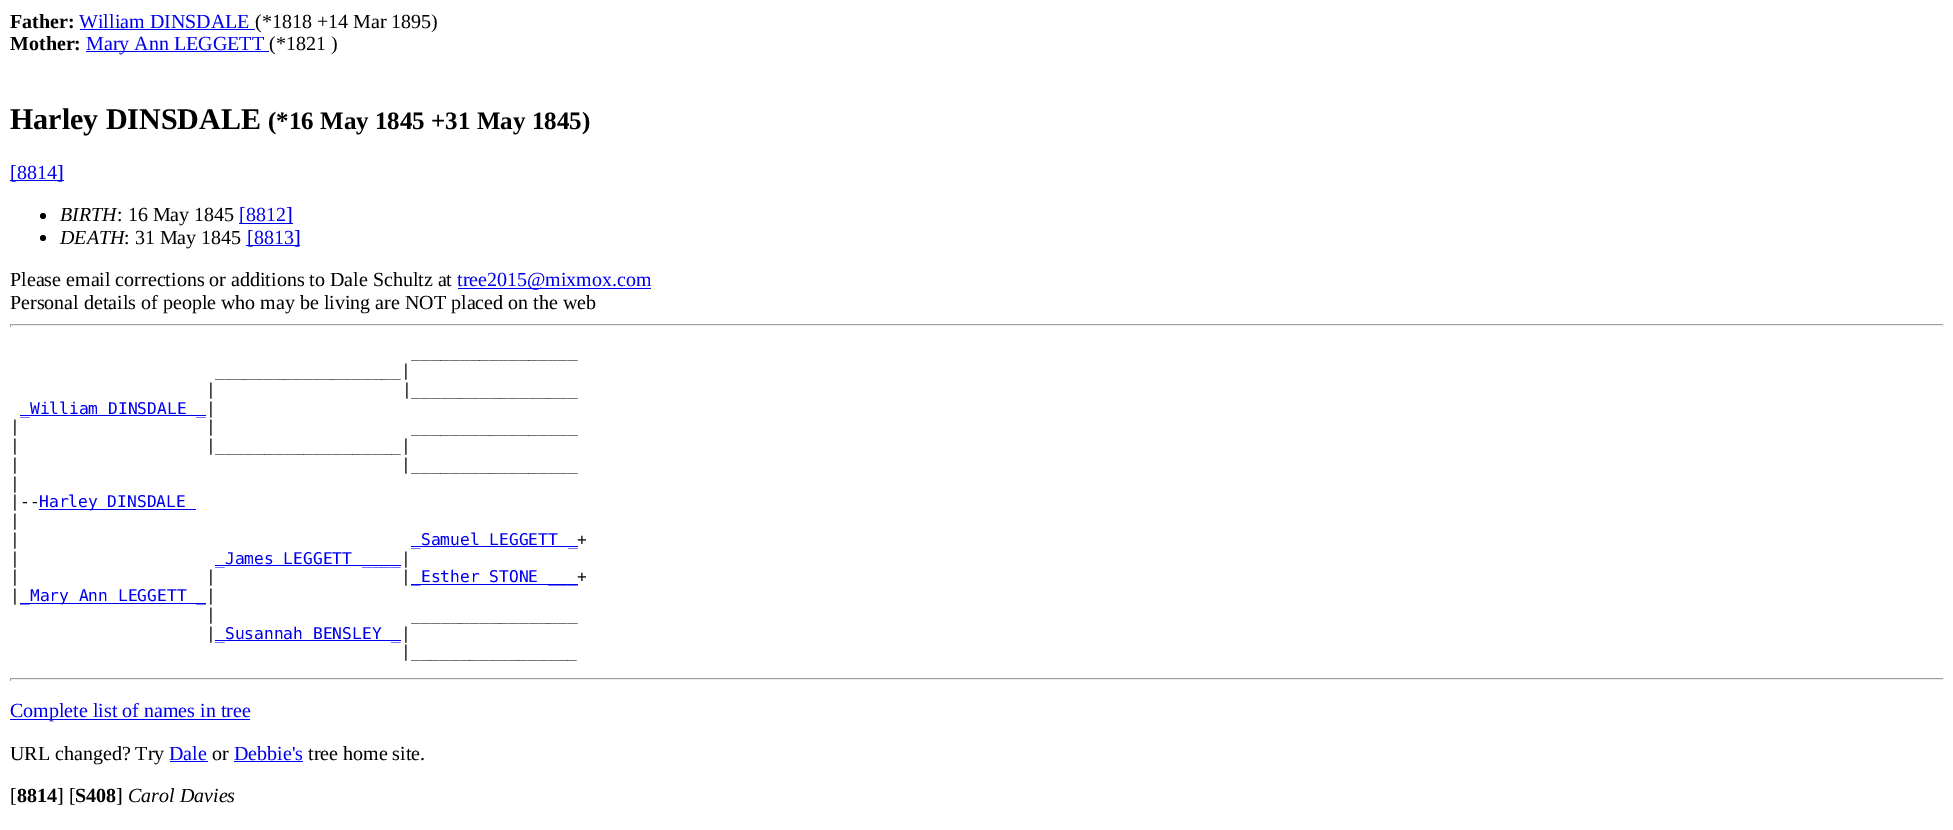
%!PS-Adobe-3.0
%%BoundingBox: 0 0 1953 830
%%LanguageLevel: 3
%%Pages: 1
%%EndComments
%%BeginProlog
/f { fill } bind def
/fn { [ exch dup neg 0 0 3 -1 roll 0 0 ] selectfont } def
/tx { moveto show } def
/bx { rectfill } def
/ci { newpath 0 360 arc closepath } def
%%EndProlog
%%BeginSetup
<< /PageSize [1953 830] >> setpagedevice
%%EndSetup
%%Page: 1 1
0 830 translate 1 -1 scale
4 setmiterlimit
1 setgray
0 0 1953 830 bx
/LiberationSerif-Bold 20 fn
0 setgray
(Father:) 10 28 tx
/LiberationSerif-Regular 20 fn
0 0 0.933 setrgbcolor
(William DINSDALE) 79 28 tx
0 setgray
(\(*1818 +14 Mar 1895\)) 255 28 tx
0 0 0.933 setrgbcolor
80 29 175 1 bx
/LiberationSerif-Bold 20 fn
0 setgray
(Mother:) 10 50 tx
0 0 0.933 setrgbcolor
86 51 183 1 bx
/LiberationSerif-Regular 20 fn
(Mary Ann LEGGETT) 86 50 tx
0 setgray
(\(*1821 \)) 269 50 tx
/LiberationSerif-Bold 30 fn
(Harley DINSDALE) 10 129 tx
/LiberationSerif-Bold 25 fn
(\(*16 May 1845 +31 May 1845\)) 268 129 tx
0 0 0.933 setrgbcolor
10 180 54 1 bx
/LiberationSerif-Regular 20 fn
([8814]) 10 179 tx
0 setgray
43 216 3 ci f
/LiberationSerif-Italic 20 fn
(BIRTH) 60 221 tx
/LiberationSerif-Regular 20 fn
(: 16 May 1845) 117 221 tx
0 0 0.933 setrgbcolor
239 223 54 1 bx
([8812]) 239 221 tx
0 setgray
43 238 3 ci f
/LiberationSerif-Italic 20 fn
(DEATH) 60 244 tx
/LiberationSerif-Regular 20 fn
(: 31 May 1845) 124 244 tx
0 0 0.933 setrgbcolor
246 245 54 1 bx
([8813]) 247 244 tx
0 setgray
(Please email corrections or additions to Dale Schultz at) 10 286 tx
0 0 0.933 setrgbcolor
458 288 193 1 bx
(tree2015@mixmox.com) 457 286 tx
0 setgray
(Personal details of people who may be living are NOT placed on the web) 10 309 tx
0.624 setgray
10 324 1934 1 bx
0.933 setgray
1943 324 1 3 bx
10 325 1934 1 bx
0.624 setgray
10 324 1 3 bx
/DejaVuSansMono-Regular 16.25 fn
0 setgray
(_________________) 411 357 tx
(___________________|) 215 376 tx
(|                   |_________________) 206 395 tx
0 0 0.933 setrgbcolor
20 415 186 1 bx
(_William DINSDALE _) 20 414 tx
0 setgray
(|) 206 414 tx
(|                   |                    _________________) 10 432 tx
(|                   |___________________|) 10 451 tx
(|                                       |_________________) 10 470 tx
(|) 10 489 tx
(|--) 10 507 tx
0 0 0.933 setrgbcolor
39 509 157 1 bx
(Harley DINSDALE) 39 507 tx
0 setgray
(|) 10 526 tx
(|) 10 545 tx
0 0 0.933 setrgbcolor
411 546 167 1 bx
(_Samuel LEGGETT _) 411 545 tx
0 setgray
(+) 577 545 tx
(|) 10 564 tx
0 0 0.933 setrgbcolor
215 565 186 1 bx
(_James LEGGETT ____) 215 564 tx
0 setgray
(|) 401 564 tx
(|                   |                   |) 10 582 tx
0 0 0.933 setrgbcolor
411 584 167 1 bx
(_Esther STONE ___) 411 582 tx
0 setgray
(+) 577 582 tx
(|) 10 601 tx
0 0 0.933 setrgbcolor
20 603 186 1 bx
(_Mary Ann LEGGETT _) 20 601 tx
0 setgray
(|) 206 601 tx
(|                    _________________) 206 620 tx
(|) 206 639 tx
0 0 0.933 setrgbcolor
215 640 186 1 bx
(_Susannah BENSLEY _) 215 639 tx
0 setgray
(|) 401 639 tx
(|_________________) 401 657 tx
0.624 setgray
10 678 1934 1 bx
0.933 setgray
1943 678 1 3 bx
10 679 1934 1 bx
0.624 setgray
10 678 1 3 bx
0 0 0.933 setrgbcolor
10 719 240 1 bx
/LiberationSerif-Regular 20 fn
(Complete list of names in tree) 10 717 tx
0 setgray
(URL changed? Try) 10 760 tx
0 0 0.933 setrgbcolor
(Dale) 169 760 tx
170 761 38 1 bx
0 setgray
(or) 212 760 tx
0 0 0.933 setrgbcolor
(Debbie's) 234 760 tx
234 761 69 1 bx
0 setgray
(tree home site.) 308 760 tx
([) 10 802 tx
/LiberationSerif-Bold 20 fn
(8814) 17 802 tx
/LiberationSerif-Regular 20 fn
(] [) 57 802 tx
/LiberationSerif-Bold 20 fn
(S408) 75 802 tx
/LiberationSerif-Regular 20 fn
(]) 116 802 tx
/LiberationSerif-Italic 20 fn
(Carol Davies) 128 802 tx
showpage
%%EOF
